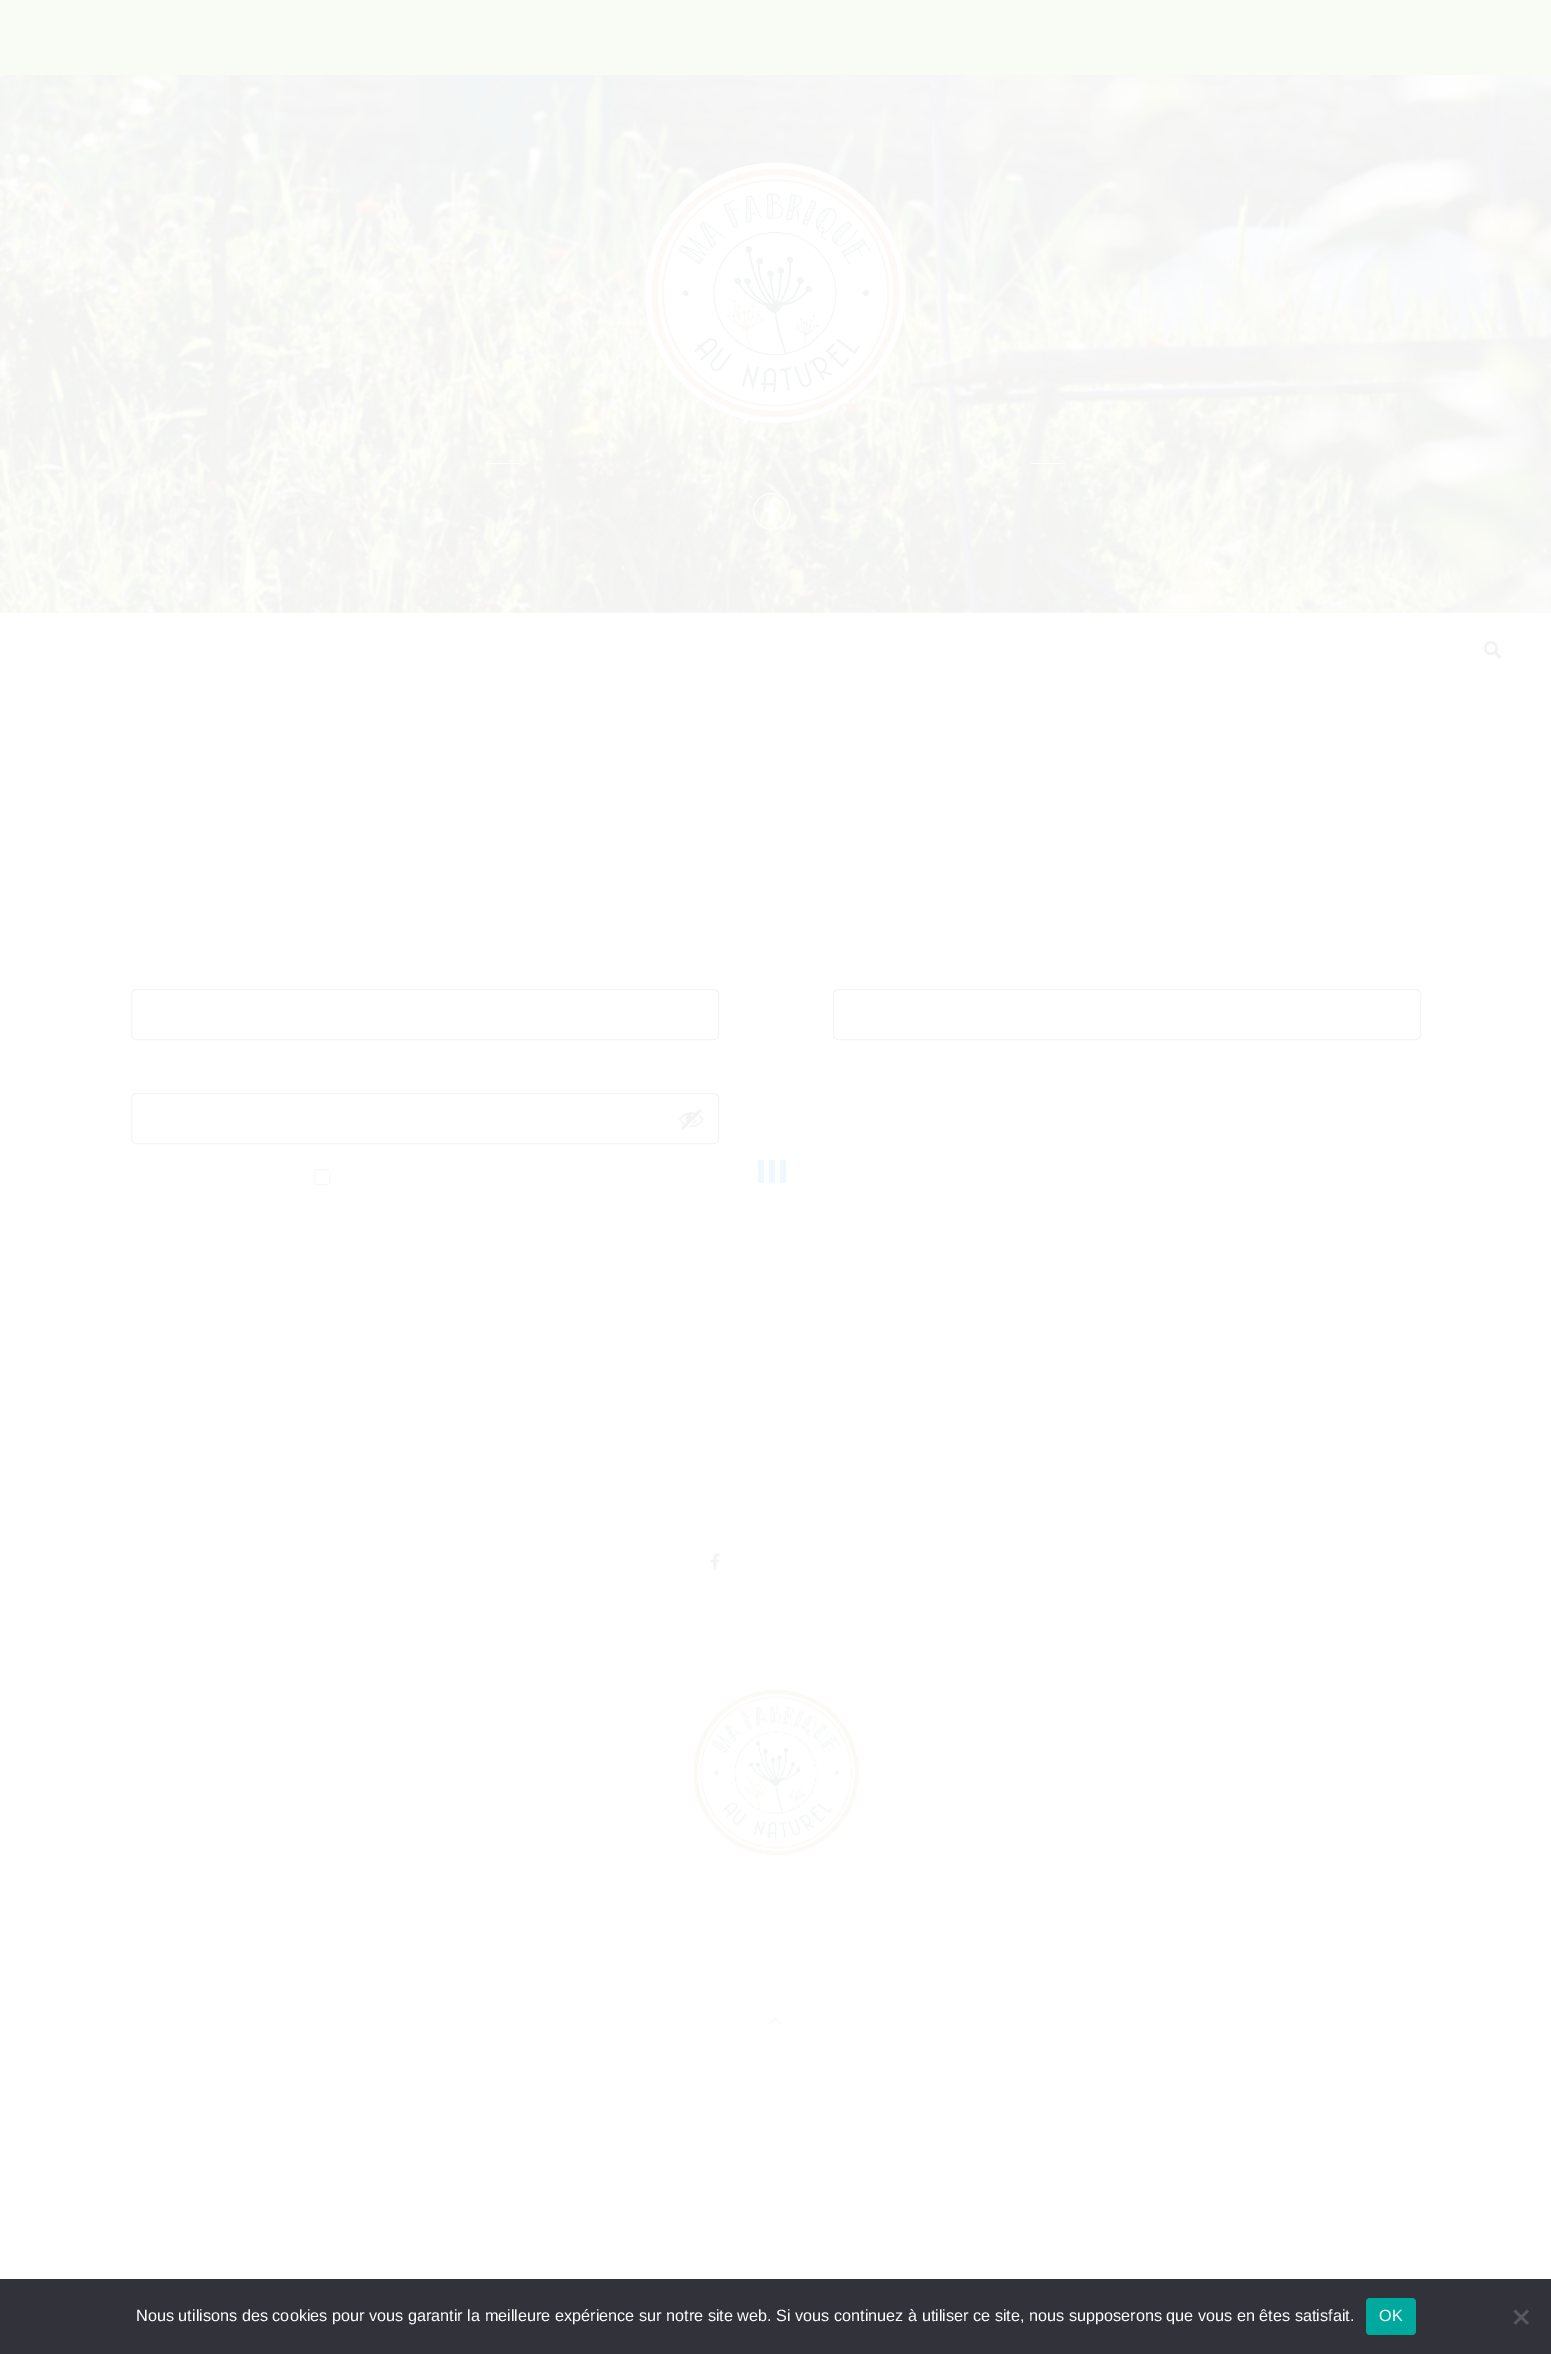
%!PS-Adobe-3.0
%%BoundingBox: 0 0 1551 2354
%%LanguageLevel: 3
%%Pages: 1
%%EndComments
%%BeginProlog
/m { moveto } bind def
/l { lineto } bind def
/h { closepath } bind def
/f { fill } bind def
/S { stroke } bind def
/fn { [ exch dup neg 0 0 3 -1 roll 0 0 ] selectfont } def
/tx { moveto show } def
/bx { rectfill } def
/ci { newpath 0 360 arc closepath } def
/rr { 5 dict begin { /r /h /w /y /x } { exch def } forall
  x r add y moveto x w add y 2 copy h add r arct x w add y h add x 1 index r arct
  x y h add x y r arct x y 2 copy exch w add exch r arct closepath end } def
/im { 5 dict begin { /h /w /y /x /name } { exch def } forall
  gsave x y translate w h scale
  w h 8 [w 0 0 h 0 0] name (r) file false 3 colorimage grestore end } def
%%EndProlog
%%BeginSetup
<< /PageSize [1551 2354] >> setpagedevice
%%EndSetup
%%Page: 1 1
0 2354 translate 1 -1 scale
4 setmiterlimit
1 setgray
0 0 1551 2354 bx
0.973 0.988 0.961 setrgbcolor
0 0 1551 75 bx
0.98 0.988 0.973 setrgbcolor
0 612 1551 1 bx
(image0.raw) 0 75 1551 538 im
(image1.raw) 645 162 261 261 im
1 setgray
486 463 34 1 bx
1031 463 34 1 bx
771.5 511.5 18 ci S
(image2.raw) 764 498 15 26 im
(image3.raw) 1483 640 19 19 im
0.965 0.961 0.961 setrgbcolor
131.5 989.5 587 50 4.5 rr S
131.5 1093.5 587 50 4.5 rr S
(image4.raw) 678 1109 26 21 im
0.973 setgray
314.5 1169.5 15 15 2 rr S
0.965 0.961 0.961 setrgbcolor
833.5 989.5 587 50 4.5 rr S
(image5.raw) 710 1553 10 17 im
(image6.raw) 689 1685 174 174 im
(image7.raw) 768 2017 15 9 im
0.933 0.976 1 setrgbcolor
758 1160 6 23 bx
769 1160 6 23 bx
780 1160 6 23 bx
0.196 0.196 0.227 setrgbcolor
0 2279 1551 75 bx
/LiberationSans-Regular 16.25 fn
1 setgray
(Nous utilisons des cookies pour vous garantir la meilleure expérience sur notre site web. Si vous continuez à utiliser ce site, nous supposerons que vous en êtes satisfait.) 136 2321 tx
0 0.663 0.616 setrgbcolor
1366 2298 50 37 4 rr f
1 setgray
(OK) 1379 2321 tx
0.349 0.349 0.365 setrgbcolor
1527 2309.5 m 1529 2311.5 l 1515.5 2324.5 l 1513.5 2323 l h f
1513.5 2311.5 m 1515.5 2309.5 l 1529 2323 l 1527 2324.5 l h f
showpage
%%EOF
